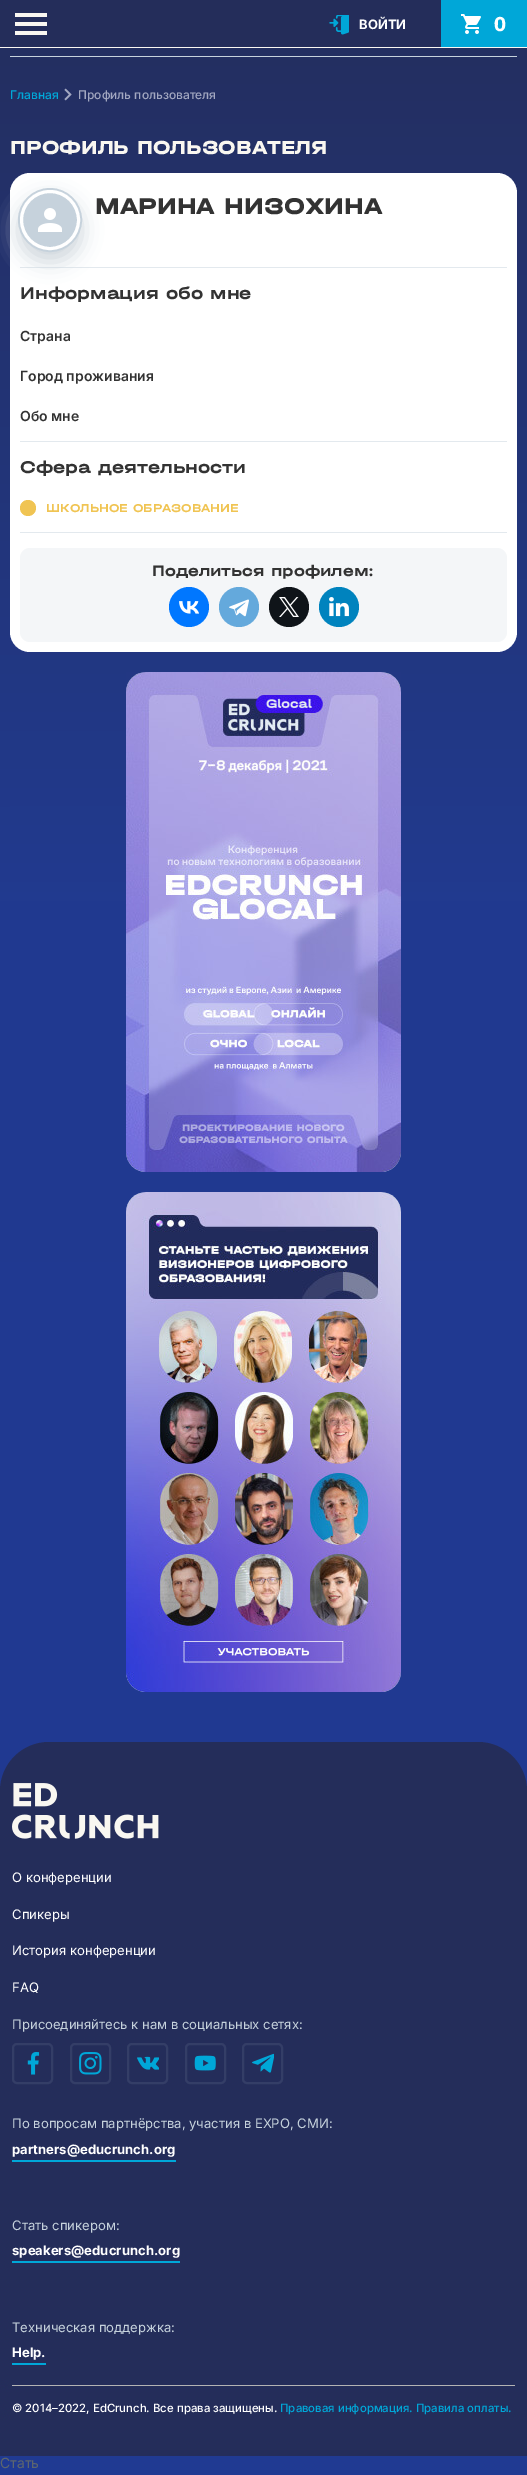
%!PS-Adobe-3.0
%%BoundingBox: 0 0 527 2475
%%LanguageLevel: 3
%%Pages: 1
%%EndComments
%%BeginProlog
/m { moveto } bind def
/l { lineto } bind def
/c { curveto } bind def
/h { closepath } bind def
/f { fill } bind def
/S { stroke } bind def
/q { gsave } bind def
/Q { grestore } bind def
/w { setlinewidth } bind def
/fn { [ exch dup neg 0 0 3 -1 roll 0 0 ] selectfont } def
/tx { moveto show } def
/bx { rectfill } def
/al { dup .setfillconstantalpha .setstrokeconstantalpha } def
/ci { newpath 0 360 arc closepath } def
/rr { 5 dict begin { /r /h /w /y /x } { exch def } forall
  x r add y moveto x w add y 2 copy h add r arct x w add y h add x 1 index r arct
  x y h add x y r arct x y 2 copy exch w add exch r arct closepath end } def
/sh { 12 dict begin { /a /b /q /h /w /y /x } { exch def } forall gsave /was 0 def
  9 -2 -9 { dup b mul 4 div /e exch def 1 sub .425 mul 2.718 exch exp 1 add a .99 .min exch div /now exch def
    1 1 now sub 1 was sub div sub al /was now def
    w h .min e 2 mul add 0 gt { x e sub y e sub w e 2 mul add h e 2 mul add
      q e add b .6 mul add w h .min 2 div e add .min 0 .max rr fill } if } for grestore end } def
/im { 5 dict begin { /h /w /y /x /name } { exch def } forall
  gsave x y translate w h scale
  w h 8 [w 0 0 h 0 0] name (r) file false 3 colorimage grestore end } def
%%EndProlog
%%BeginSetup
<< /PageSize [527 2475] /PageUsesTransparency true >> setpagedevice
%%EndSetup
%%Page: 1 1
0 .pushpdf14devicefilter
0 2475 translate 1 -1 scale
4 setmiterlimit
1 setgray
0 0 527 2475 bx
q 0 48 m 527 48 l 527 2475 l 0 2475 l h clip newpath
<< /ShadingType 2 /ColorSpace /DeviceRGB /Coords [263 -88 264 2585] /Extend [true true] /Function << /FunctionType 3 /Domain [0 1] /Functions [<< /FunctionType 2 /Domain [0 1] /C0 [0.141 0.176 0.353] /C1 [0.129 0.227 0.561] /N 1 >> << /FunctionType 2 /Domain [0 1] /C0 [0.129 0.227 0.561] /C1 [0.125 0.224 0.565] /N 1 >> << /FunctionType 2 /Domain [0 1] /C0 [0.125 0.224 0.565] /C1 [0.125 0.227 0.573] /N 1 >>] /Bounds [0.37 0.38] /Encode [0 1 0 1 0 1] >> >> shfill Q
0.141 0.176 0.353 setrgbcolor
0 0 441 47 bx
0.98 0.969 0.949 setrgbcolor
0 47 527 1 bx
0.976 0.969 0.945 setrgbcolor
15 13 32 4 bx
15 22 32 4 bx
15 31 32 4 bx
(image0.raw) 329 15 20 20 im
/Inter-Bold 13 fn
1 setgray
(ВОЙТИ) 359 29 tx
0 0.655 0.847 setrgbcolor
441 0 86 47 bx
(image1.raw) 461 14 20 20 im
/IBMPlexSans-Bold 20 fn
1 setgray
494 31 m 2 0 (0) ashow
0.776 0.824 0.863 setrgbcolor
10 56 507 1 bx
/Inter-Medium 12 fn
0 0.655 0.847 setrgbcolor
(Главная) 10 99 tx
(image2.raw) 64 88 8 13 im
0.639 0.659 0.757 setrgbcolor
(Профиль пользователя) 78 99 tx
/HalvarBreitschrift-ExtraBold 20 fn
0.976 0.969 0.945 setrgbcolor
(ПРОФИЛЬ ПОЛЬЗОВАТЕЛЯ) 10 154 tx
1 setgray
10 173 507 479 20 rr f
0.89 0.914 0.933 setrgbcolor
20 267 487 1 bx
0.812 0.843 0.867 setrgbcolor
18 198 64 64 32 10 1 sh
0.776 0.824 0.863 setrgbcolor
50 220 31 ci q f Q
2 w
S
(image3.raw) 38 208 24 24 im
1 setgray
3 w
50 220 28.5 ci S
/HalvarBreitschrift-ExtraBold 24 fn
0.2 setgray
(МАРИНА НИЗОХИНА) 95 214 tx
0.89 0.914 0.933 setrgbcolor
20 441 487 1 bx
/HalvarBreitschrift-Bold 18 fn
0.2 setgray
(Информация обо мне) 20 299 tx
/Inter-SemiBold 14 fn
(Страна) 20 341 tx
(Город проживания) 20 381 tx
(Обо мне) 20 421 tx
0.89 0.914 0.933 setrgbcolor
20 532 487 1 bx
/HalvarBreitschrift-Bold 18 fn
0.2 setgray
(Сфера деятельности) 20 473 tx
0.941 0.769 0.325 setrgbcolor
28 508 8 ci f
/HalvarBreitschrift-Bold 12 fn
(ШКОЛЬНОЕ ОБРАЗОВАНИЕ) 46 512 tx
0.957 0.965 0.973 setrgbcolor
20 548 487 94 10 rr f
/HalvarBreitschrift-Bold 16 fn
0.2 setgray
(Поделиться профилем:) 152 576 tx
0 0.467 1 setrgbcolor
189 607 20 ci f
(image4.raw) 179 601 20 13 im
0.392 0.663 0.863 setrgbcolor
239 607 20 ci f
(image5.raw) 229 599 20 18 im
0.059 0.078 0.098 setrgbcolor
289 607 20 ci f
(image6.raw) 279 597 20 20 im
0 0.514 0.745 setrgbcolor
339 607 20 ci f
(image7.raw) 329 597 20 20 im
(image8.raw) 126 672 275 500 im
(image9.raw) 126 1192 275 500 im
0.141 0.176 0.353 setrgbcolor
49 1742 m 478 1742 l 505 1742 527 1764 527 1791 c 527 2456 l 0 2456 l 0 1791 l 0 1764 22 1742 49 1742 c h f
0.702 setgray
12 2385 503 1 bx
(image10.raw) 12 1783 147 56 im
/Inter-Regular 13.1 fn
1 setgray
(О конференции) 12 1882 tx
(Спикеры) 12 1919 tx
(История конференции) 12 1955 tx
(FAQ) 12 1992 tx
0.776 0.824 0.863 setrgbcolor
(Присоединяйтесь к нам в социальных сетях:) 12 2029 tx
0.204 0.243 0.404 setrgbcolor
2 w
13 2044 39 39 4 rr S
(image11.raw) 27 2052 13 23 im
71 2044 39 39 4 rr S
(image12.raw) 79 2052 23 23 im
128 2044 39 39 4 rr S
(image13.raw) 137 2056 22 14 im
186 2044 39 39 4 rr S
(image14.raw) 194 2055 22 16 im
243 2044 39 39 4 rr S
(image15.raw) 252 2053 22 20 im
0.776 0.824 0.863 setrgbcolor
(По вопросам партнёрства, участия в EXPO, СМИ:) 12 2128 tx
/Inter-Bold 13.1 fn
1 setgray
(partners@educrunch.org) 12 2154 tx
0 0.655 0.847 setrgbcolor
12 2160 164 2 bx
/Inter-Regular 13.1 fn
0.776 0.824 0.863 setrgbcolor
(Стать спикером:) 12 2230 tx
/Inter-Bold 13.1 fn
1 setgray
(speakers@educrunch.org) 12 2255 tx
0 0.655 0.847 setrgbcolor
12 2261 168 2 bx
/Inter-Regular 13.1 fn
0.776 0.824 0.863 setrgbcolor
(Техническая поддержка:) 12 2332 tx
/Inter-Bold 13.1 fn
1 setgray
(Help.) 12 2357 tx
0 0.655 0.847 setrgbcolor
12 2363 34 2 bx
/Inter-Medium 11.4 fn
1 setgray
(© 2014–2022, EdCrunch. Все права защищены.) 12 2412 tx
0 0.655 0.847 setrgbcolor
(Правовая информация. Правила оплаты.) 280 2412 tx
/Inter-Regular 14 fn
0.365 0.4 0.427 setrgbcolor
(Стать) 0 2468 tx
.poppdf14devicefilter showpage
%%EOF
